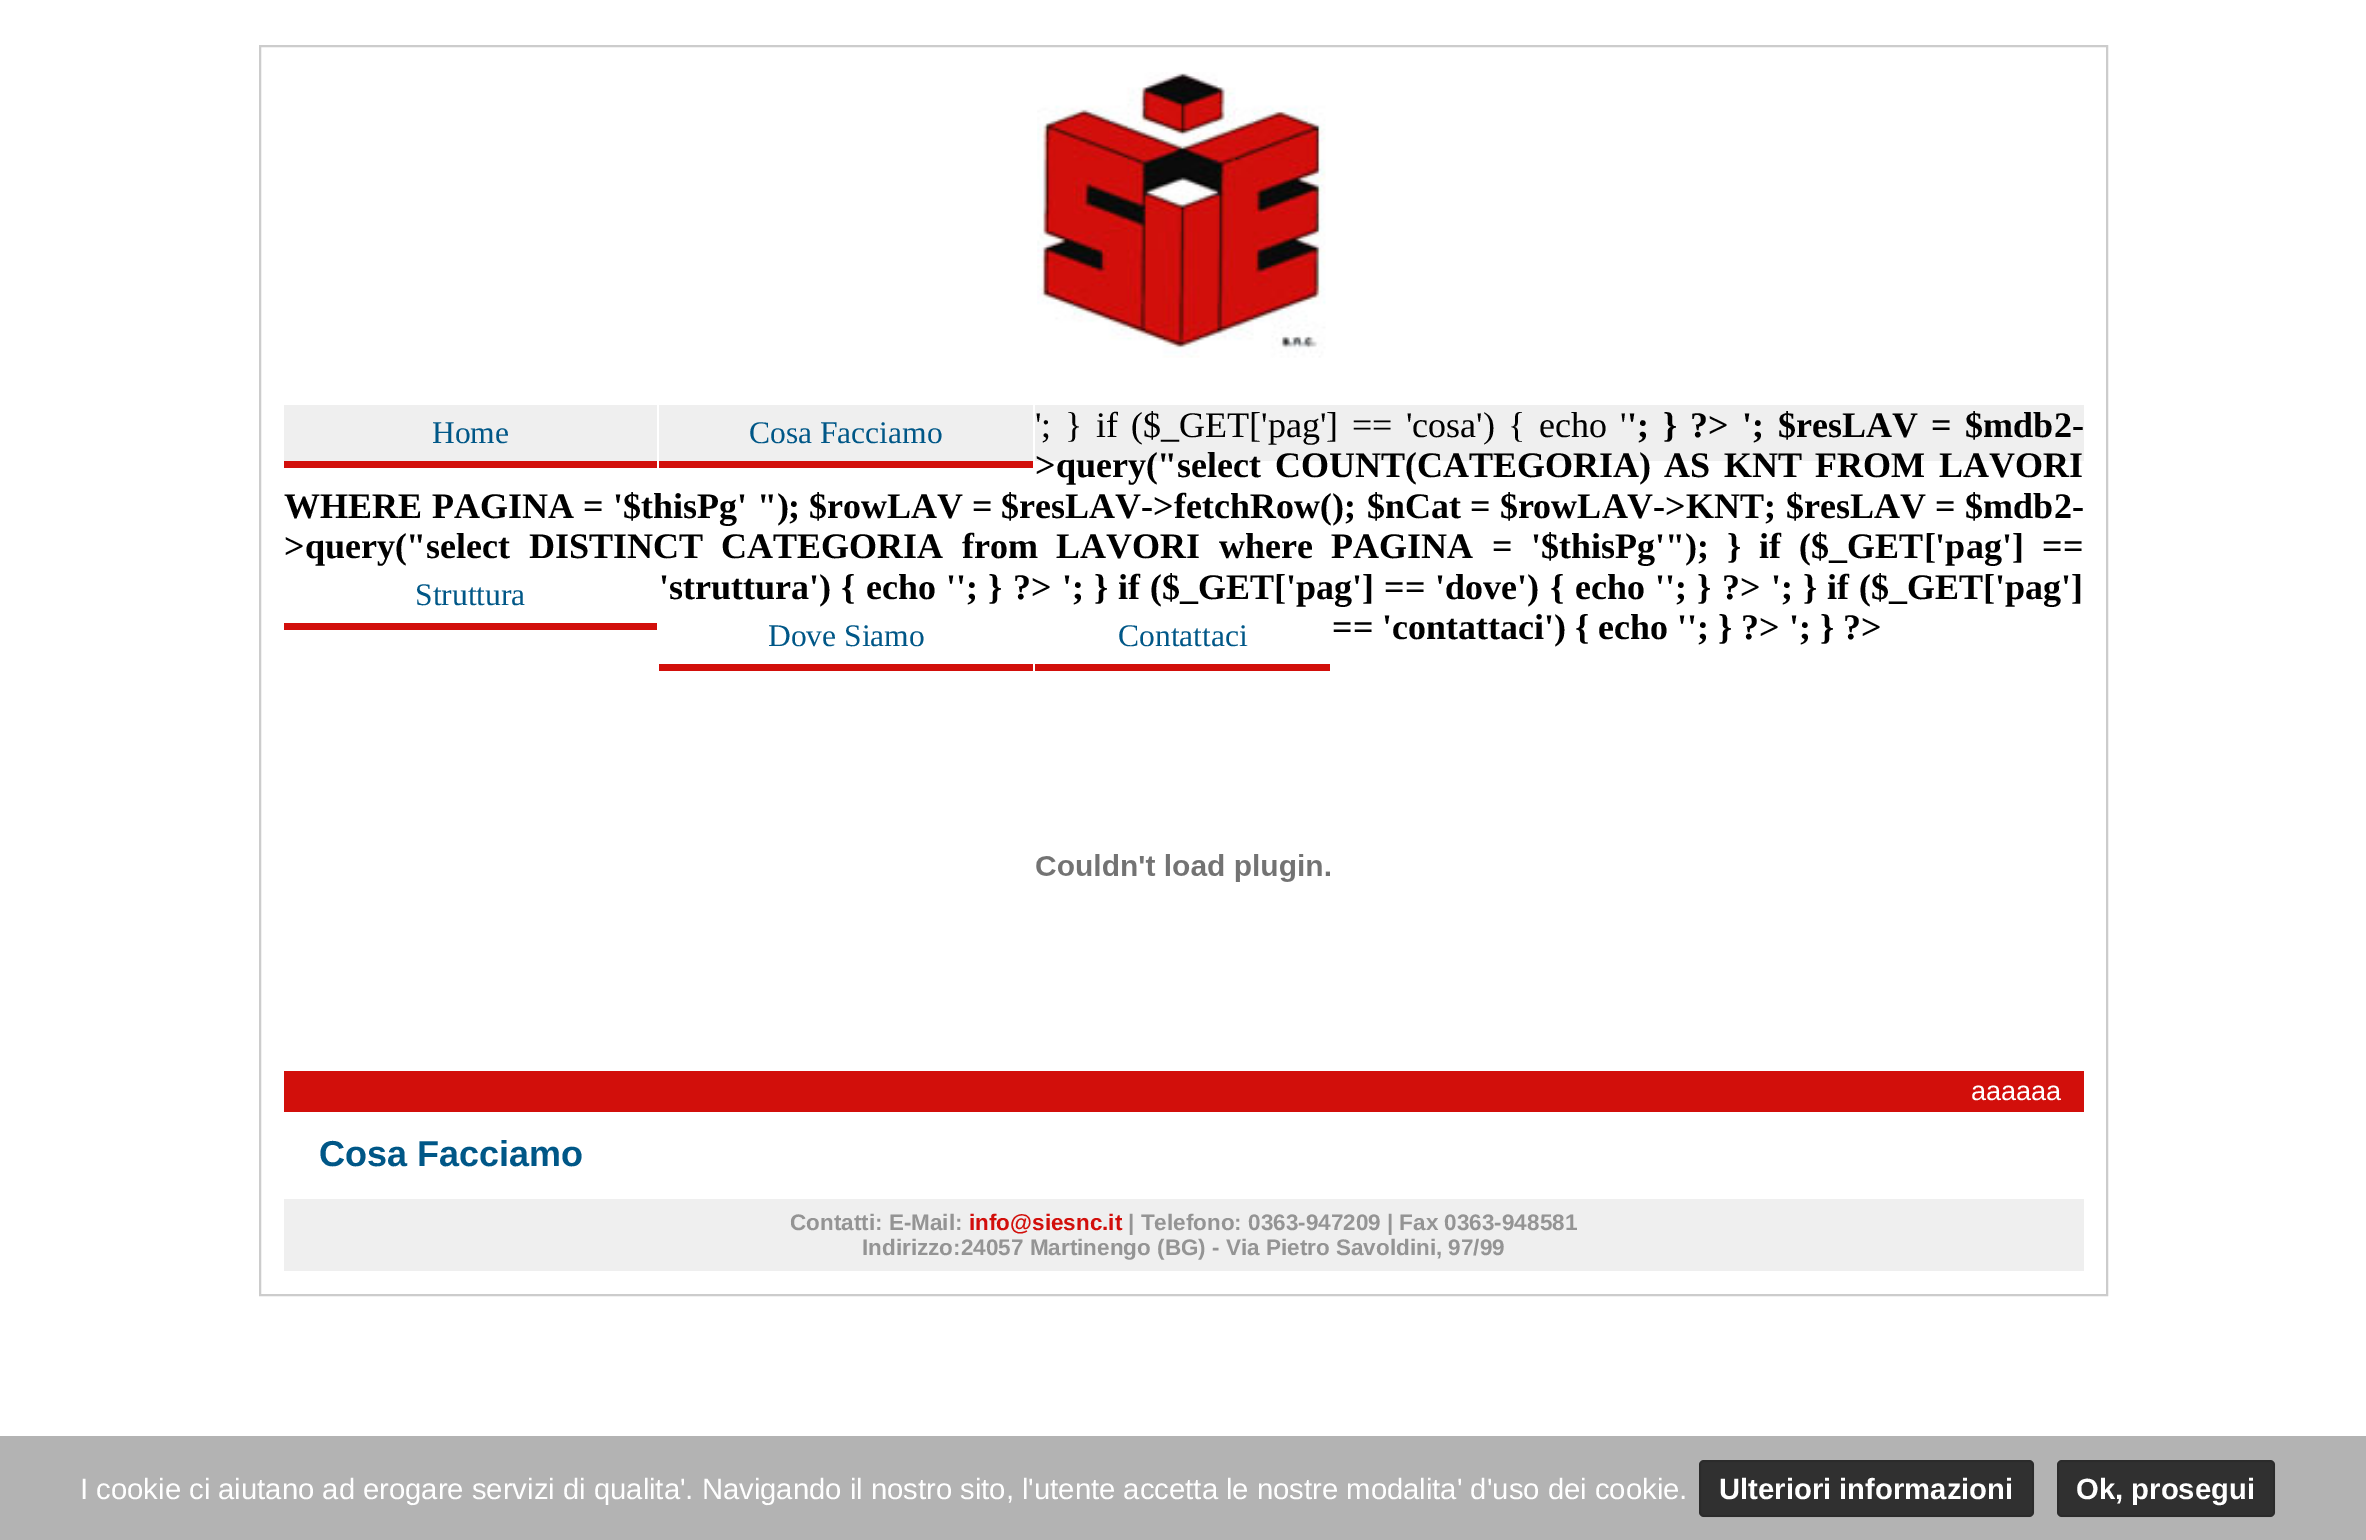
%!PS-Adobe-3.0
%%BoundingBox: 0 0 2366 1540
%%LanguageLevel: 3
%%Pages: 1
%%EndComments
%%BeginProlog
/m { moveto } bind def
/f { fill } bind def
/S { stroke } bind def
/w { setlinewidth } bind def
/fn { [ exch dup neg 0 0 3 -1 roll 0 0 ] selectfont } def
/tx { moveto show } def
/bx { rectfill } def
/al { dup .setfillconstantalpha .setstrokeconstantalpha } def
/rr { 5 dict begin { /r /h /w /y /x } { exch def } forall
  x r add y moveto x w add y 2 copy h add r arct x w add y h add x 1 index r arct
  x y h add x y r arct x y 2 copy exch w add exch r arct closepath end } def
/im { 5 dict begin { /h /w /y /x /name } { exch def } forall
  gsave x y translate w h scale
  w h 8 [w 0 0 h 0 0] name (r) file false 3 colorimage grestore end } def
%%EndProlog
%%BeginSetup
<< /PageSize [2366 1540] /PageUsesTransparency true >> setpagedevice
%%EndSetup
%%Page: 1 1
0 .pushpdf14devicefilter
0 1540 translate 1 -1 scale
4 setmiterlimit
1 setgray
0 0 2366 1540 bx
0.8 setgray
2 w
260 46 1847 1249 rectstroke
(image0.raw) 1037 72 289 286 im
0.937 setgray
284 405 1800 56 bx
1 setgray
1033 405 2 63 bx
0.824 0.059 0.043 setrgbcolor
659 461 374 7 bx
/LiberationSerif-Regular 31.5 fn
0 0.341 0.529 setrgbcolor
(Cosa Facciamo) 749 443 tx
/LiberationSerif-Bold 36 fn
0 setgray
(';) 1627 437 tx
(}) 1663 437 tx
(?>) 1690 437 tx
(';) 1742 437 tx
1778 437 m 4.5 0 32 ($resLAV = $mdb2-) widthshow
1035 477 m 4.5 0 32 (>query\("select COUNT\(CATEGORIA\) AS KNT FROM LAVORI) widthshow
284 518 m 0.5 0 32 (WHERE PAGINA = '$thisPg' "\);) widthshow
($rowLAV = $resLAV->fetchRow\(\);) 809 518 tx
($nCat = $rowLAV->KNT;) 1367 518 tx
1786 518 m 0.5 0 32 ($resLAV = $mdb2-) widthshow
284 558 m 9.5 0 32 (>query\("select DISTINCT CATEGORIA from LAVORI where PAGINA = '$thisPg'"\);) widthshow
(}) 1727 558 tx
1759 558 m 9.5 0 32 (if \($_GET['pag'] ==) widthshow
(';) 1665 599 tx
(}) 1697 599 tx
(?>) 1722 599 tx
(';) 1771 599 tx
(}) 1803 599 tx
1827 599 m 1 0 32 (if \($_GET['pag']) widthshow
0.824 0.059 0.043 setrgbcolor
659 664 374 7 bx
/LiberationSerif-Regular 31.5 fn
0 0.341 0.529 setrgbcolor
(Dove Siamo) 768 646 tx
0.824 0.059 0.043 setrgbcolor
1035 664 295 7 bx
0 0.341 0.529 setrgbcolor
(Contattaci) 1118 646 tx
/LiberationSerif-Bold 36 fn
0 setgray
(== 'contattaci'\) { echo ''; } ?> '; } ?>) 1332 639 tx
0.824 0.059 0.043 setrgbcolor
284 623 373 7 bx
/LiberationSerif-Regular 31.5 fn
0 0.341 0.529 setrgbcolor
(Struttura) 415 605 tx
/LiberationSerif-Bold 36 fn
0 setgray
(';) 956 599 tx
(}) 988 599 tx
(?>) 1013 599 tx
(';) 1062 599 tx
(}) 1094 599 tx
1118 599 m 1 0 32 (if \($_GET['pag'] == 'dove'\)) widthshow
({) 1550 599 tx
1575 599 m 1 0 32 (echo ') widthshow
('struttura'\)) 659 599 tx
({) 841 599 tx
866 599 m 1 0 32 (echo ') widthshow
1 setgray
657 405 2 63 bx
0.824 0.059 0.043 setrgbcolor
284 461 373 7 bx
/LiberationSerif-Regular 31.5 fn
0 0.341 0.529 setrgbcolor
(Home) 432 443 tx
/LiberationSerif-Regular 36 fn
0 setgray
(';) 1035 437 tx
(}) 1065 437 tx
1096 437 m 4.5 0 32 (if \($_GET['pag'] == 'cosa'\)) widthshow
({) 1508 437 tx
1539 437 m 4.5 0 32 (echo ') widthshow
(image1.raw) 1036 854 294 28 im
0.824 0.059 0.043 setrgbcolor
284 1071 1800 41 bx
/LiberationSans-Regular 27 fn
1 setgray
(aaaaaa) 1971 1100 tx
/LiberationSans-Bold 36 fn
0 0.341 0.529 setrgbcolor
(Cosa Facciamo) 319 1166 tx
0.937 setgray
284 1199 1800 72 bx
/LiberationSans-Bold 22.5 fn
0.58 setgray
(Contatti: E-Mail:) 790 1230 tx
0.824 0.059 0.043 setrgbcolor
(info@siesnc.it) 969 1230 tx
0.58 setgray
(| Telefono: 0363-947209 | Fax 0363-948581) 1128 1230 tx
(Indirizzo:24057 Martinengo \(BG\) - Via Pietro Savoldini, 97/99) 862 1255 tx
0.702 setgray
0 1436 2366 104 bx
/LiberationSans-Regular 29.25 fn
1 setgray
(I cookie ci aiutano ad erogare servizi di qualita'. Navigando il nostro sito, l'utente accetta le nostre modalita' d'uso dei cookie.) 80 1499 tx
0.188 setgray
1699 1460 335 57 5 rr f
0.1 al
0 setgray
1700 1461 333 55 4 rr S
/LiberationSans-Bold 29.25 fn
1 al
1 setgray
(Ulteriori informazioni) 1719 1499 tx
0.188 setgray
2057 1460 218 57 5 rr f
0.1 al
0 setgray
2058 1461 216 55 4 rr S
1 al
1 setgray
(Ok, prosegui) 2076 1499 tx
.poppdf14devicefilter showpage
%%EOF
